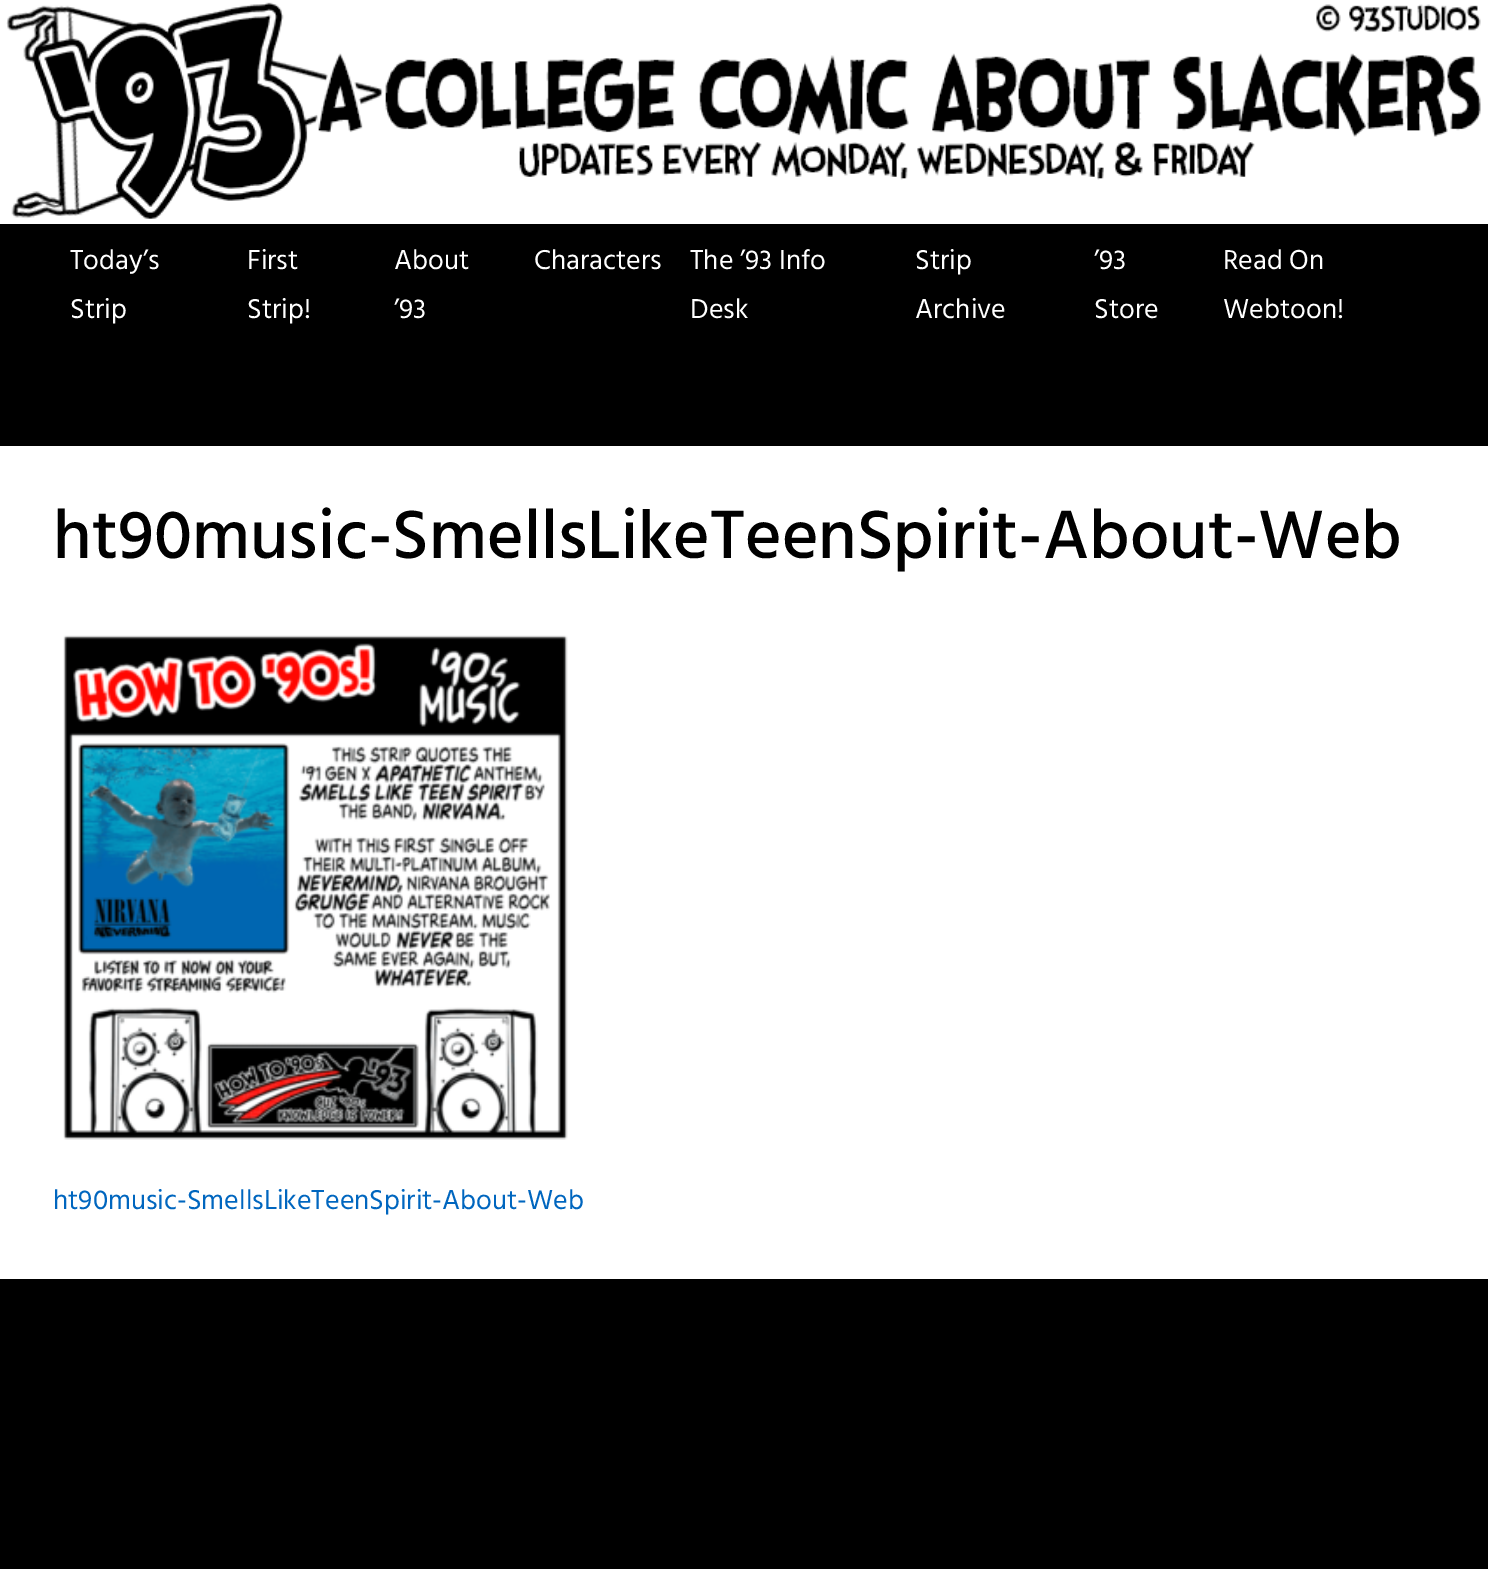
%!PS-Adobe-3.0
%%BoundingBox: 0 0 1488 1569
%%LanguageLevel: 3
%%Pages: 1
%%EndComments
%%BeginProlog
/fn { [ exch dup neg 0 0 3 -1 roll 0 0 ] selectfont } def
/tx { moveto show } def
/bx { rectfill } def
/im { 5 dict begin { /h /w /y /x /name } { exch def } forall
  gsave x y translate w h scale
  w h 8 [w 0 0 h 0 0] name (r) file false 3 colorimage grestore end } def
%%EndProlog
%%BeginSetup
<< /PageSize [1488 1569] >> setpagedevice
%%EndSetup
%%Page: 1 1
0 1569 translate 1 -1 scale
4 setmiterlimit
0 setgray
0 0 1488 1569 bx
1 setgray
0 0 1488 224 bx
(image0.raw) 6 2 1475 217 im
/Hind-Regular 28 fn
(Today’s) 70 269 tx
(Strip) 70 318 tx
(First) 247 269 tx
(Strip!) 247 318 tx
(About) 394 269 tx
(’93) 394 318 tx
(Characters) 534 269 tx
(The ’93 Info) 690 269 tx
(Desk) 690 318 tx
(Strip) 915 269 tx
(Archive) 915 318 tx
(’93) 1094 269 tx
(Store) 1094 318 tx
(Read On) 1223 269 tx
(Webtoon!) 1223 318 tx
0 446 1488 833 bx
/Hind-Medium 70 fn
0 setgray
(ht90music-SmellsLikeTeenSpirit-About-Web) 53 558 tx
(image1.raw) 63 635 505 505 im
/Hind-Regular 28 fn
0 0.4 0.749 setrgbcolor
(ht90music-SmellsLikeTeenSpirit-About-Web) 53 1209 tx
showpage
%%EOF
